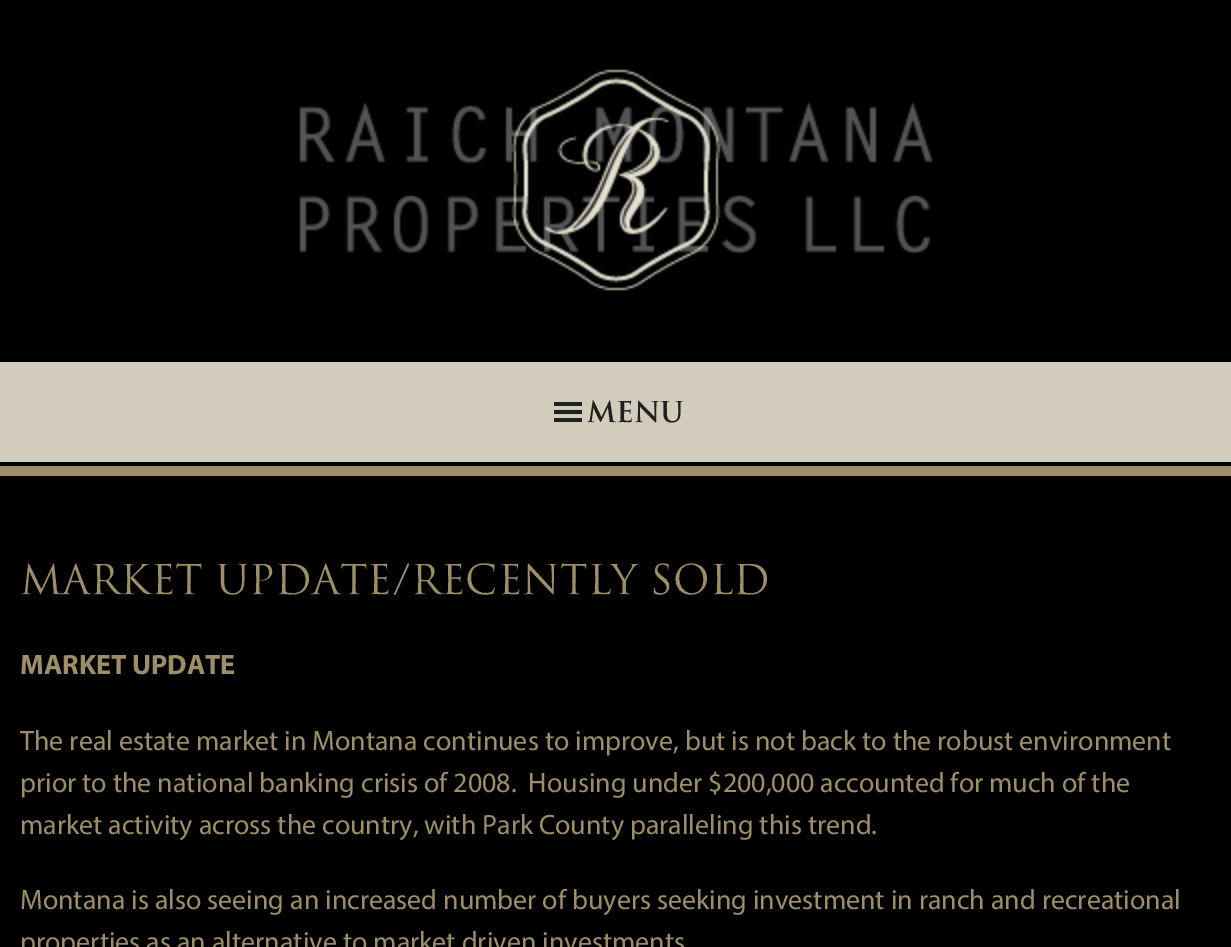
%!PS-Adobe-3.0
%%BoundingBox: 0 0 1231 947
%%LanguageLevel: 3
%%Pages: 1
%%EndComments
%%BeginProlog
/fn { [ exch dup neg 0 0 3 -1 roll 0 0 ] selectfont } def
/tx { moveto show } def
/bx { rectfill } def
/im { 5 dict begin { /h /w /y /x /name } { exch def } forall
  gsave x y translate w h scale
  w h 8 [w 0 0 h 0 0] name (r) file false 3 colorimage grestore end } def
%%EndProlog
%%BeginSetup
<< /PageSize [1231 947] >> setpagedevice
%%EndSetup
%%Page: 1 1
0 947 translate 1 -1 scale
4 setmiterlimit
0 setgray
0 0 1231 947 bx
(image0.raw) 299 69 634 222 im
0.82 0.8 0.733 setrgbcolor
0 362 1231 100 bx
(image1.raw) 554 402 28 20 im
/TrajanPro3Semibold-SemiBold 28 fn
0.125 setgray
(MENU) 587 422 tx
0.616 0.557 0.408 setrgbcolor
0 466 1231 10 bx
/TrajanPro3-Regular 40 fn
(MARKET UPDATE/RECENTLY SOLD) 20 594 tx
/Myriad-Bold 28 fn
(MARKET UPDATE) 20 674 tx
/Myriad-Regular 28 fn
(The real estate market in Montana continues to improve, but is not back to the robust environment) 20 750 tx
(prior to the national banking crisis of 2008.  Housing under $200,000 accounted for much of the) 20 792 tx
(market activity across the country, with Park County paralleling this trend.) 20 834 tx
(Montana is also seeing an increased number of buyers seeking investment in ranch and recreational) 20 909 tx
(properties as an alternative to market driven investments) 20 951 tx
showpage
%%EOF
